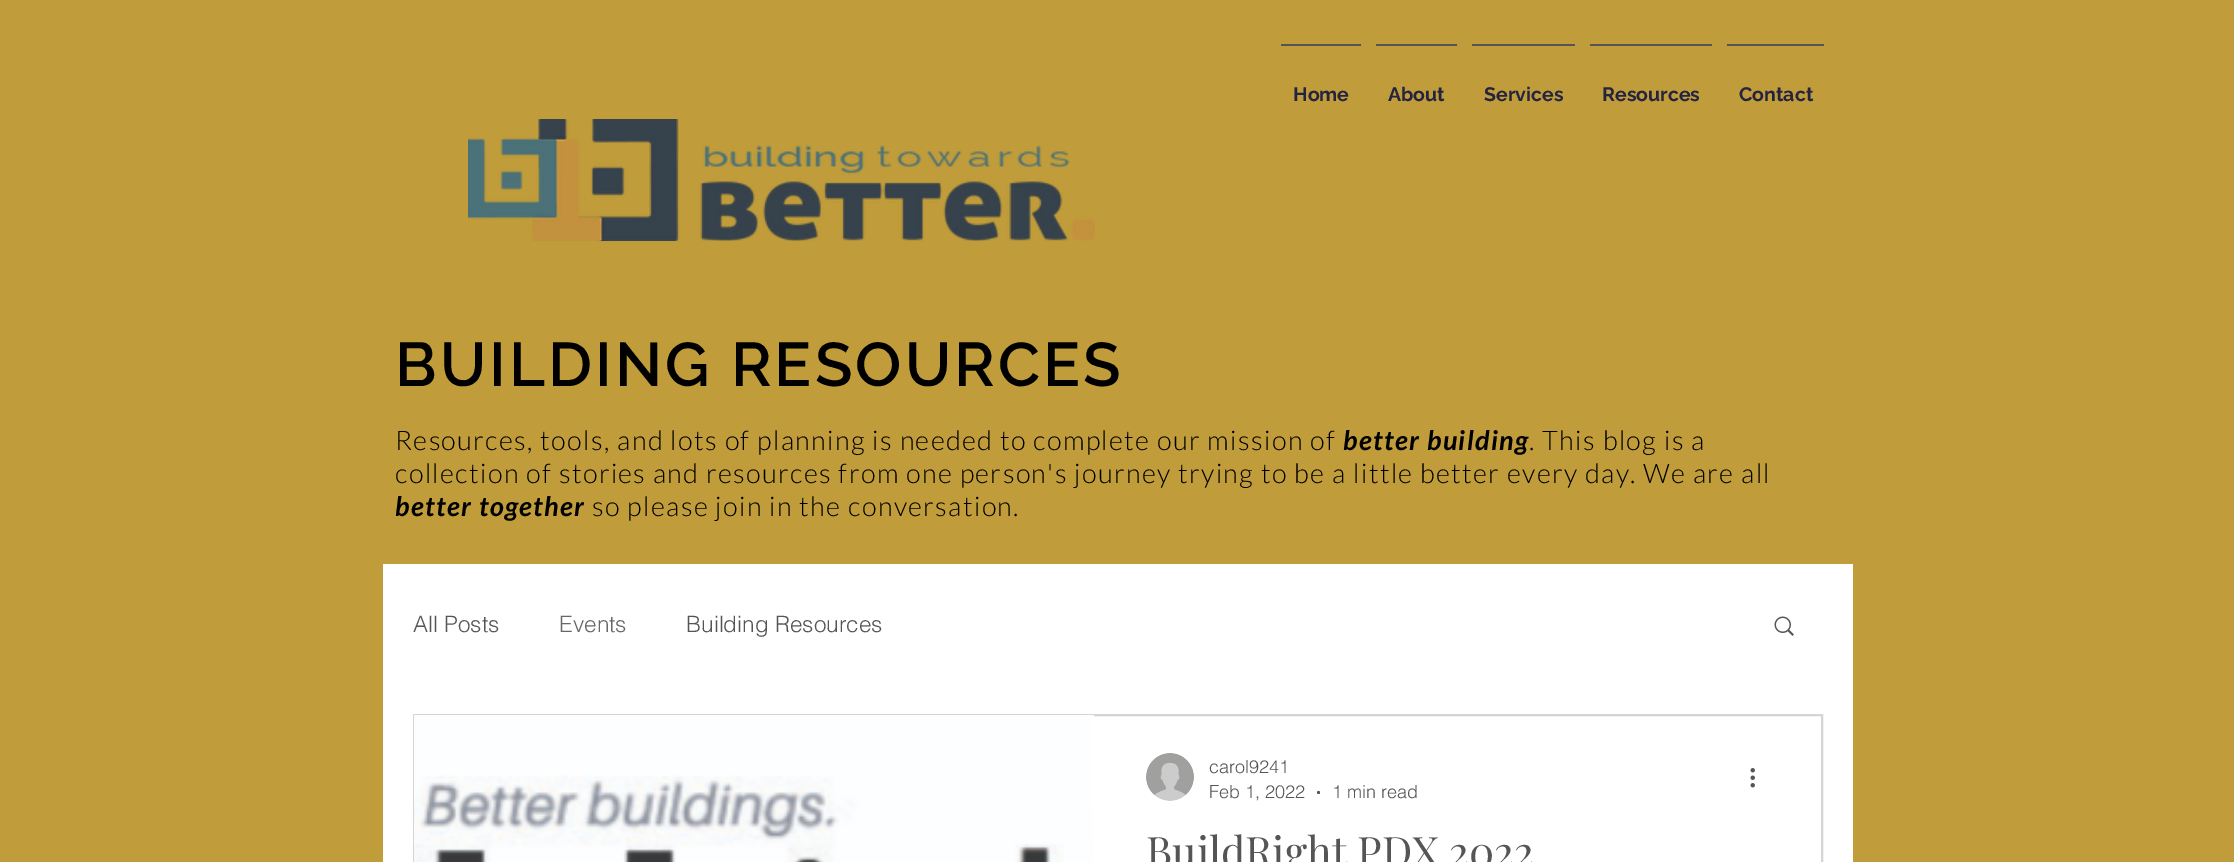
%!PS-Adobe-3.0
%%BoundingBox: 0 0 2234 862
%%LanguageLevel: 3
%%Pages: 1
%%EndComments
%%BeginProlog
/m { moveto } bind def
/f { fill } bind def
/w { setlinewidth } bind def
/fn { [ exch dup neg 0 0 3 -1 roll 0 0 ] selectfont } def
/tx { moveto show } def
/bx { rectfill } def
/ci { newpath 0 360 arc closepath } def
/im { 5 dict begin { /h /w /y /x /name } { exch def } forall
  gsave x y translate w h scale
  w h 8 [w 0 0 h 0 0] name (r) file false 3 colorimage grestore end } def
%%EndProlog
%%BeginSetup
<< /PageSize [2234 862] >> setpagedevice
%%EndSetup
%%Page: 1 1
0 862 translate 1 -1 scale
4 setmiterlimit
0.753 0.612 0.227 setrgbcolor
0 0 2234 862 bx
0.333 setgray
1281 44 80 2 bx
/Raleway-Bold 19.5 fn
0.141 0.141 0.255 setrgbcolor
(Home) 1293 101 tx
0.333 setgray
1376 44 81 2 bx
0.141 0.141 0.255 setrgbcolor
(About) 1388 101 tx
0.333 setgray
1472 44 103 2 bx
0.141 0.141 0.255 setrgbcolor
(Services) 1484 101 tx
0.333 setgray
1590 44 122 2 bx
0.141 0.141 0.255 setrgbcolor
(Resources) 1602 101 tx
0.333 setgray
1727 44 97 2 bx
0.141 0.141 0.255 setrgbcolor
(Contact) 1739 101 tx
(image0.raw) 468 119 627 123 im
/Raleway-SemiBold 61.5 fn
0 setgray
395 386 m 3.1 0 (BUILDING RESOURCES) ashow
/Lato-Light 27 fn
395 450 m 1.35 0 (Resources, tools, and lots of planning is needed to complete our mission of) ashow
/Lato-BoldItalic 27 fn
1343 450 m 1.35 0 (better building) ashow
/Lato-Light 27 fn
1529 450 m 1.35 0 (. This blog is a) ashow
395 483 m 1.35 0 (collection of stories and resources from one person's journey trying to be a little better every day. We are all) ashow
/Lato-BoldItalic 27 fn
395 516 m 1.35 0 (better together) ashow
/Lato-Light 27 fn
592 516 m 1.35 0 (so please join in the conversation.) ashow
1 setgray
383 564 1470 298 bx
/helvetica-Light 22.5 fn
0.333 setgray
(All Posts) 413 632 tx
0.404 setgray
(Events) 559 632 tx
0.333 setgray
(Building Resources) 686 632 tx
(image1.raw) 1774 616 20 20 im
0.835 setgray
2 w
414 715 1408 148 rectstroke
(image3.raw) 1091 715 3 147 im
(image2.raw) 414 715 680 147 im
1 setgray
1092 716 2 146 bx
(image4.raw) 1146 753 48 48 im
/helvetica-Light 18 fn
0.333 setgray
(carol9241) 1209 773 tx
(Feb 1, 2022) 1209 798 tx
1318.5 792.5 1.5 ci f
(1 min read) 1332 798 tx
(image5.raw) 1750 768 5 20 im
/PlayfairDisplay-Regular 42 fn
(BuildRight PDX 2022) 1146 867 tx
showpage
%%EOF
